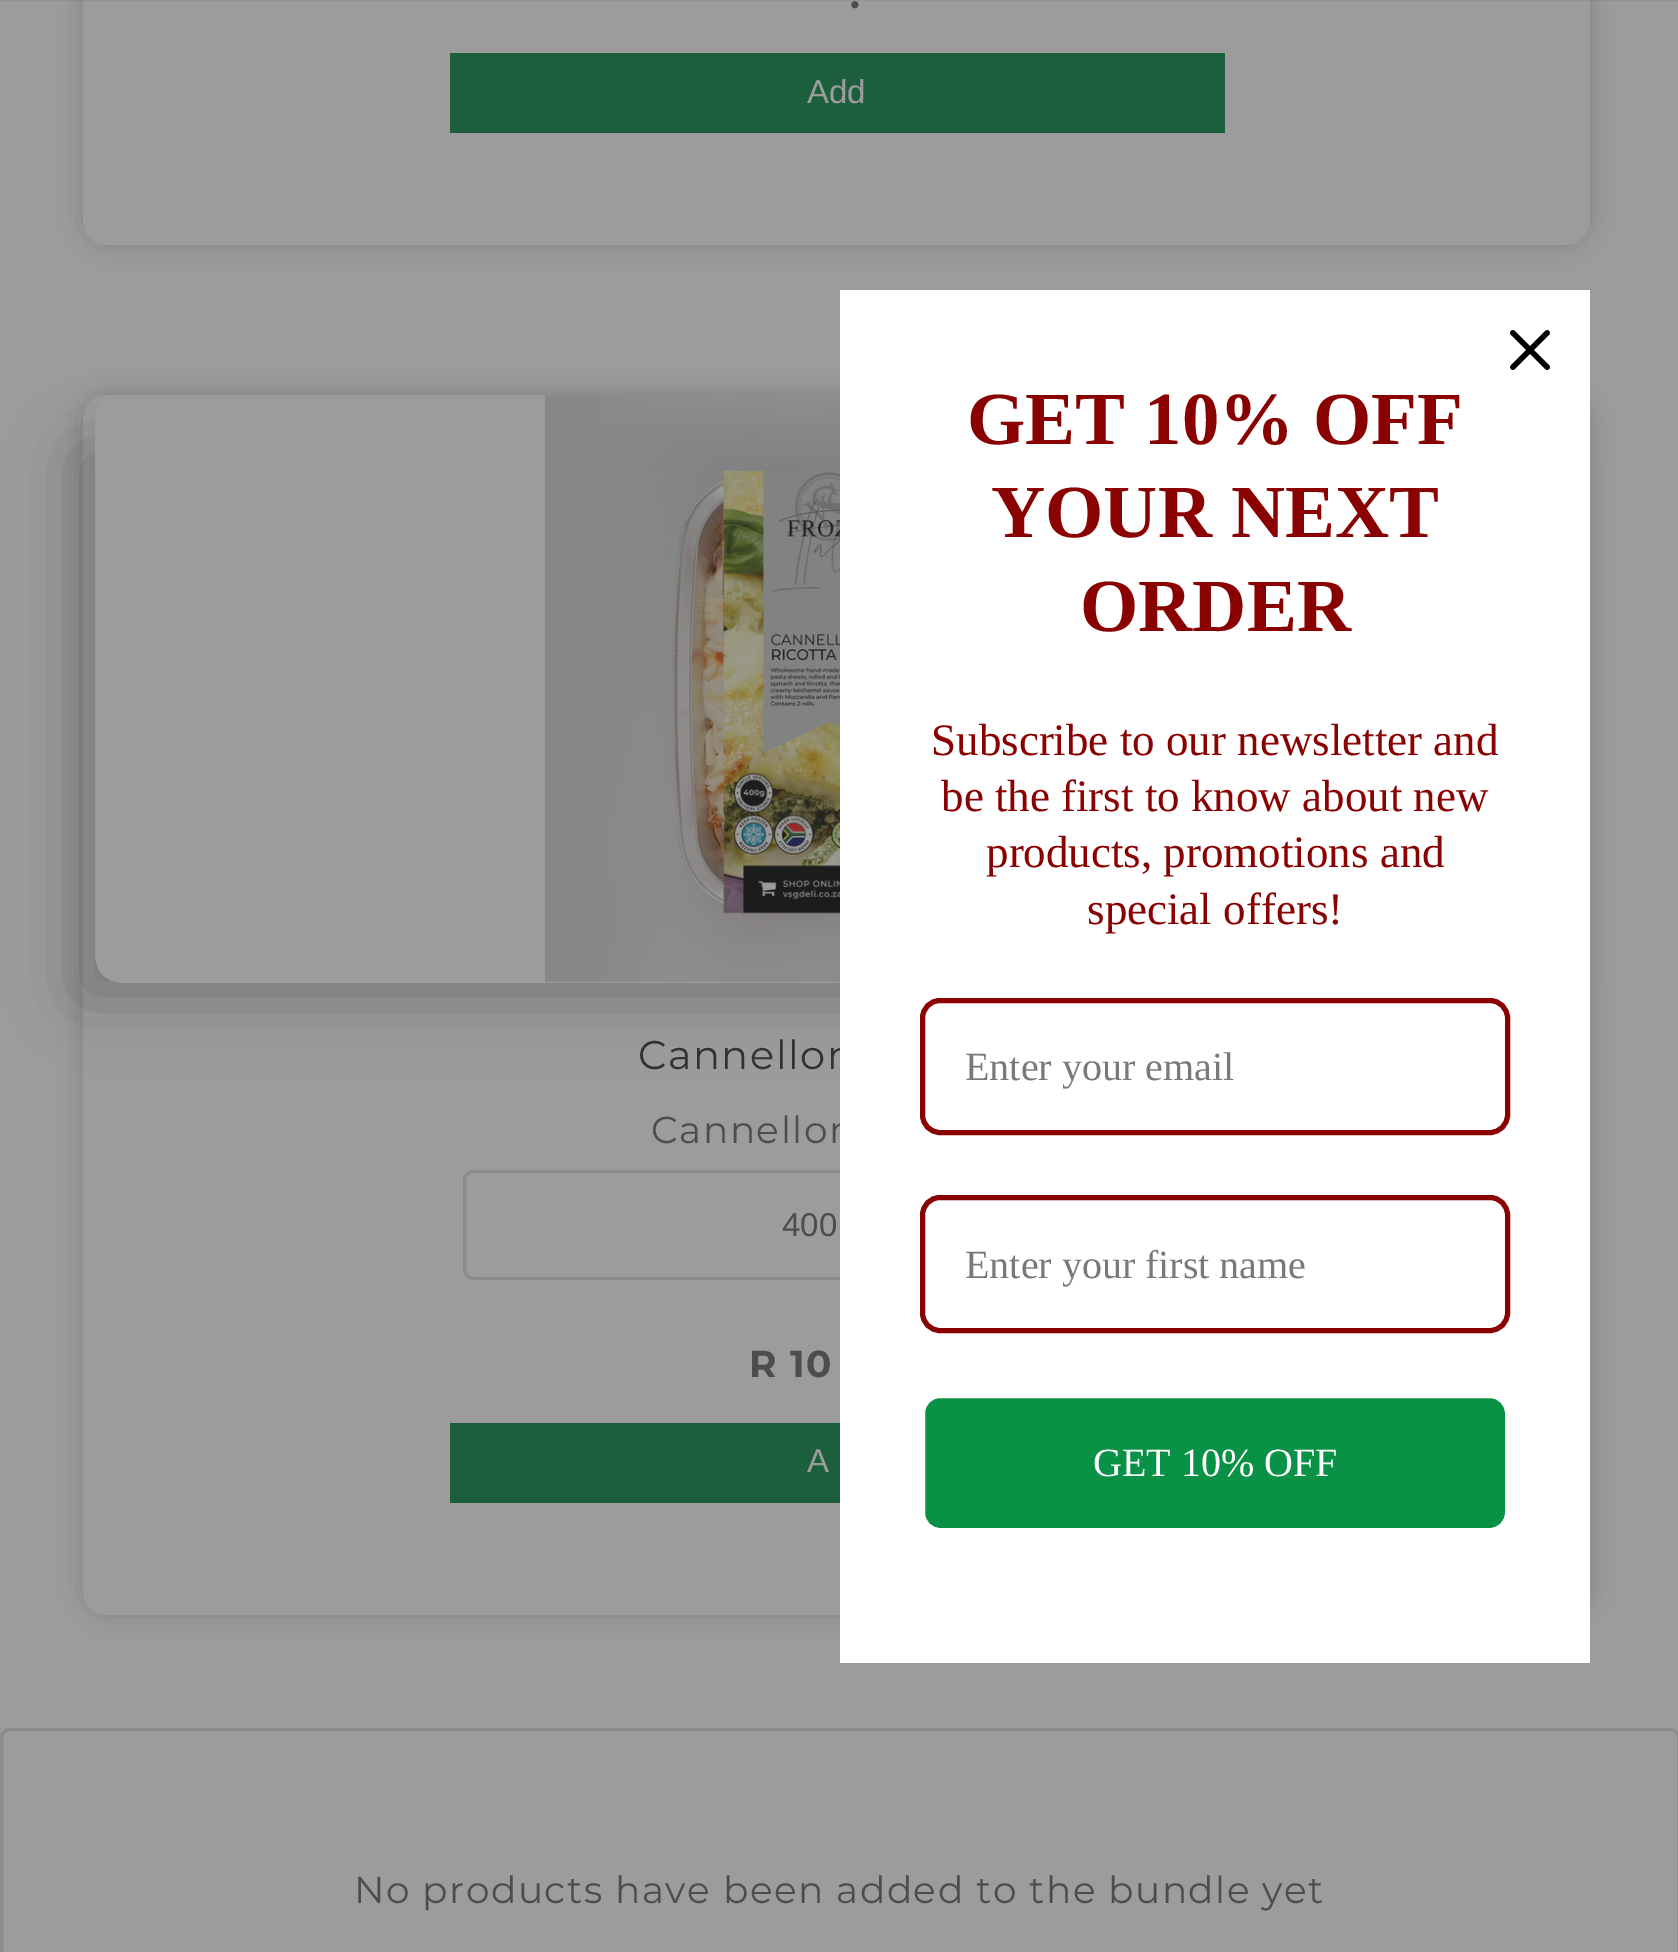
%!PS-Adobe-3.0
%%BoundingBox: 0 0 1678 1952
%%LanguageLevel: 3
%%Pages: 1
%%EndComments
%%BeginProlog
/m { moveto } bind def
/l { lineto } bind def
/c { curveto } bind def
/h { closepath } bind def
/f { fill } bind def
/S { stroke } bind def
/q { gsave } bind def
/Q { grestore } bind def
/w { setlinewidth } bind def
/fn { [ exch dup neg 0 0 3 -1 roll 0 0 ] selectfont } def
/tx { moveto show } def
/bx { rectfill } def
/al { dup .setfillconstantalpha .setstrokeconstantalpha } def
/rr { 5 dict begin { /r /h /w /y /x } { exch def } forall
  x r add y moveto x w add y 2 copy h add r arct x w add y h add x 1 index r arct
  x y h add x y r arct x y 2 copy exch w add exch r arct closepath end } def
/sh { 12 dict begin { /a /b /q /h /w /y /x } { exch def } forall gsave /was 0 def
  9 -2 -9 { dup b mul 4 div /e exch def 1 sub .425 mul 2.718 exch exp 1 add a .99 .min exch div /now exch def
    1 1 now sub 1 was sub div sub al /was now def
    w h .min e 2 mul add 0 gt { x e sub y e sub w e 2 mul add h e 2 mul add
      q e add b .6 mul add w h .min 2 div e add .min 0 .max rr fill } if } for grestore end } def
/im { 5 dict begin { /h /w /y /x /name } { exch def } forall
  gsave x y translate w h scale
  w h 8 [w 0 0 h 0 0] name (r) file false 3 colorimage grestore end } def
%%EndProlog
%%BeginSetup
<< /PageSize [1678 1952] /PageUsesTransparency true >> setpagedevice
%%EndSetup
%%Page: 1 1
0 .pushpdf14devicefilter
0 1952 translate 1 -1 scale
4 setmiterlimit
0.612 setgray
0 0 1678 1952 bx
0.11 setgray
83 -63 1507 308 25 12.5 0.2 sh
0.612 setgray
83 -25 1507 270 25 rr f
0.08 al
0.196 0.196 0.2 setrgbcolor
0 0 1678 1 bx
/Montserrat-Bold 37.5 fn
1 al
0.298 0.302 0.302 setrgbcolor
850 8 m 1.5 0 (.) ashow
0.11 0.373 0.239 setrgbcolor
450 53 775 80 bx
/LiberationSans-Regular 33 fn
0.612 setgray
(Add) 807 103 tx
0.11 setgray
83 395 1507 1220 25 12.5 0.2 sh
0.612 setgray
83 395 1507 1220 25 rr f
q
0 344 m 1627 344 l 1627 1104 l 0 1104 l h 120 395 m 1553 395 l 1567 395 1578 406 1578 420 c 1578 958 l 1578 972 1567 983 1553 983 c 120 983 l 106 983 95 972 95 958 c 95 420 l 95 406 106 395 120 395 c h eoclip newpath
0.11 setgray
70 443 1458 562 13 32.5 0.25 sh
Q
(image0.raw) 545 395 295 587 im
/Montserrat-Regular 40 fn
0.196 0.196 0.2 setrgbcolor
638 1069 m 1.5 0 (Cannellon) ashow
/Montserrat-Regular 37.5 fn
0.298 0.302 0.302 setrgbcolor
651 1143 m 1.5 0 (Cannellon) ashow
0.545 setgray
3 w
464.5 1171.5 747 107 8.5 rr S
/LiberationSans-Regular 33 fn
0.298 0.302 0.302 setrgbcolor
(400) 782 1236 tx
/Montserrat-Bold 37.5 fn
749 1377 m 1.5 0 (R 10) ashow
0.11 0.373 0.239 setrgbcolor
450 1423 390 80 bx
/LiberationSans-Regular 33 fn
0.612 setgray
(A) 807 1472 tx
0.545 setgray
1.5 1729.5 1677 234 8.5 rr S
/Montserrat-Regular 37.5 fn
0.298 0.302 0.302 setrgbcolor
354 1903 m 1.5 0 (No products have been added to the bundle yet) ashow
1 setgray
840 290 750 1373 bx
(image1.raw) 1510 330 40 40 im
/LiberationSerif-Bold 75 fn
0.537 0.004 0.004 setrgbcolor
(GET 10% OFF) 967 444 tx
(YOUR NEXT) 991 537 tx
(ORDER) 1080 631 tx
/LiberationSerif-Regular 45 fn
(Subscribe to our newsletter and) 931 755 tx
(be the first to know about new) 941 811 tx
(products, promotions and) 986 867 tx
(special offers!) 1087 924 tx
5 w
922.5 1000.5 585 132 17.5 rr S
/LiberationSerif-Regular 40 fn
0.475 setgray
(Enter your email) 965 1080 tx
0.537 0.004 0.004 setrgbcolor
922.5 1197.5 585 133 17.5 rr S
0.475 setgray
(Enter your first name) 965 1278 tx
0.035 0.569 0.271 setrgbcolor
922.5 1395.5 585 135 17.5 rr q f Q
1 setgray
S
(GET 10% OFF) 1093 1476 tx
.poppdf14devicefilter showpage
%%EOF
